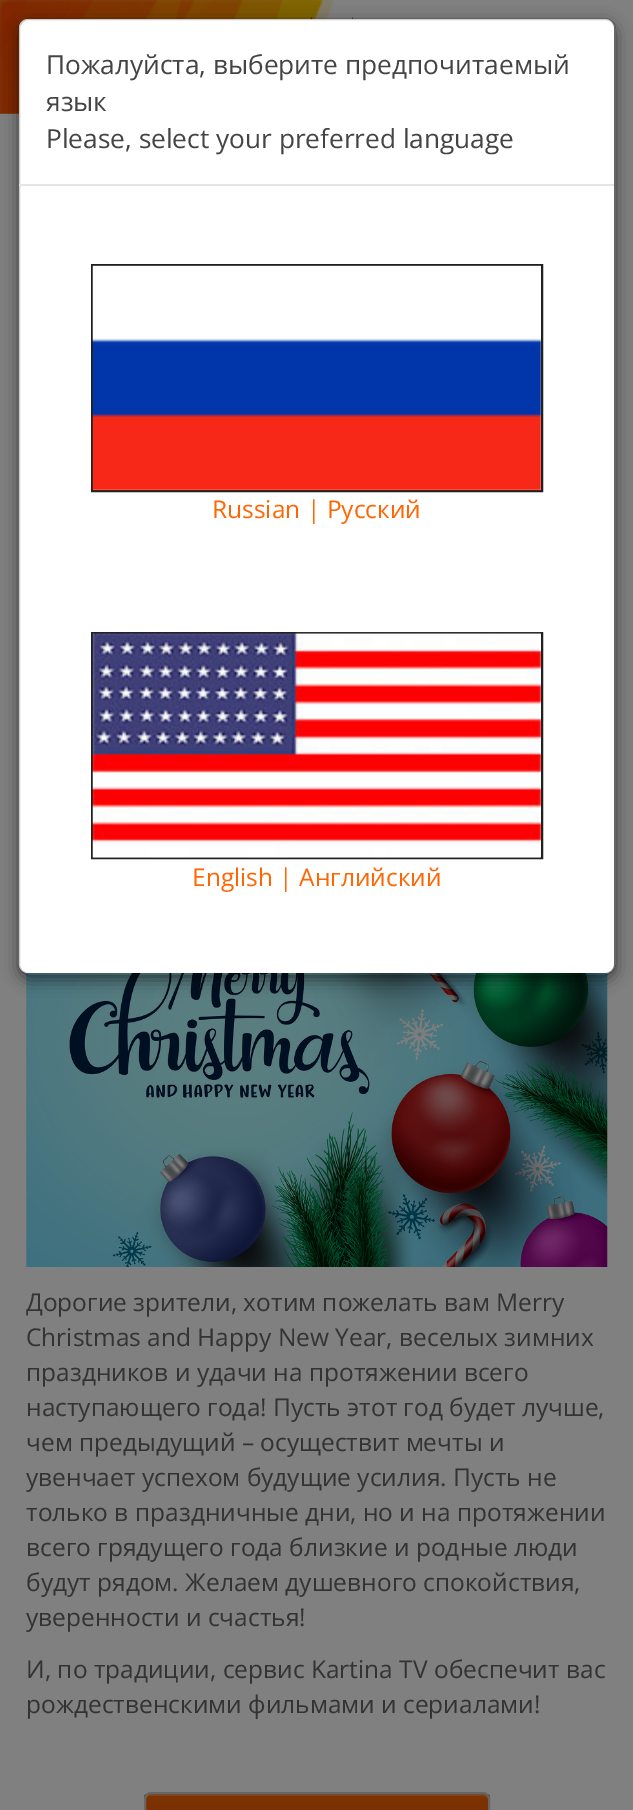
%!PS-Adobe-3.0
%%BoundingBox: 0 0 633 1810
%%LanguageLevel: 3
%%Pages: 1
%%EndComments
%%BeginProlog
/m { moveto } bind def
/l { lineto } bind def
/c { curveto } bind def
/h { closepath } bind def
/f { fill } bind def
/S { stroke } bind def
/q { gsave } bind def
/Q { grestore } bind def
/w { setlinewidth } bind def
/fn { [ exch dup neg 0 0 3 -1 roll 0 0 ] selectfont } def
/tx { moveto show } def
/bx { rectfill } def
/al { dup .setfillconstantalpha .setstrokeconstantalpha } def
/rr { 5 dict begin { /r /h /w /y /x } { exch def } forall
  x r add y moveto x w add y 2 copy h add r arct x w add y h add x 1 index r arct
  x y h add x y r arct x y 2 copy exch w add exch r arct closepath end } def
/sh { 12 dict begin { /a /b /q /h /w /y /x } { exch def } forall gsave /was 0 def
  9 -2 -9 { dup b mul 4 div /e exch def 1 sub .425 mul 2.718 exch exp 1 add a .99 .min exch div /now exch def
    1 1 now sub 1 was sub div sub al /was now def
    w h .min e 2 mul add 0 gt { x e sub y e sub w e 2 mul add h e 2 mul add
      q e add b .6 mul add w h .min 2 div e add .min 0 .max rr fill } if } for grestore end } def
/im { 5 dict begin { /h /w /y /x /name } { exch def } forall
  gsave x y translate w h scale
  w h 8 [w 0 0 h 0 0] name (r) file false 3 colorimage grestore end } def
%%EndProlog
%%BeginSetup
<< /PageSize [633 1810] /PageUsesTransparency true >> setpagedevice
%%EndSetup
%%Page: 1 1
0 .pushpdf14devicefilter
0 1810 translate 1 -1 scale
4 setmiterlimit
0.502 setgray
0 0 633 1810 bx
(image2.raw) 0 0 335 114 im
(image3.raw) 310 17 43 2 im
(image4.raw) 26 972 582 295 im
q
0 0 m 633 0 l 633 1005 l 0 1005 l h 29 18 m 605 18 l 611 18 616 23 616 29 c 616 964 l 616 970 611 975 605 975 c 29 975 l 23 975 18 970 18 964 c 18 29 l 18 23 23 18 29 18 c h eoclip newpath
0 setgray
18 23 598 957 11 8 0.5 sh
Q
1 setgray
19 19 595 954 9 rr f
0.2 al
0 setgray
2 w
19 19 596 955 10 rr S
1 al
0.898 setgray
19 184 595 2 bx
/OpenSans-Regular 26.25 fn
0.267 setgray
(Пожалуйста, выберите предпочитаемый) 46 74 tx
(язык) 46 111 tx
(Please, select your preferred language) 46 148 tx
0.125 setgray
92 265 450 226 rectstroke
(image0.raw) 92 265 449 226 im
/OpenSans-Regular 24.5 fn
1 0.4 0.008 setrgbcolor
(Russian | Русский) 212 518 tx
0.125 setgray
92 633 450 225 rectstroke
(image1.raw) 92 632 449 226 im
1 0.4 0.008 setrgbcolor
(English | Английский) 192 886 tx
0.2 setgray
(Дорогие зрители, хотим пожелать вам Merry) 26 1311 tx
(Christmas and Happy New Year, веселых зимних) 26 1346 tx
(праздников и удачи на протяжении всего) 26 1381 tx
(наступающего года! Пусть этот год будет лучше,) 26 1416 tx
(чем предыдущий – осуществит мечты и) 26 1451 tx
(увенчает успехом будущие усилия. Пусть не) 26 1486 tx
(только в праздничные дни, но и на протяжении) 26 1521 tx
(всего грядущего года близкие и родные люди) 26 1556 tx
(будут рядом. Желаем душевного спокойствия,) 26 1591 tx
(уверенности и счастья!) 26 1626 tx
(И, по традиции, сервис Kartina TV обеспечит вас) 26 1678 tx
(рождественскими фильмами и сериалами!) 26 1713 tx
q
144 1792 346 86 7 rr clip newpath
q 144 1794 m 490 1794 l 490 1810 l 144 1810 l h clip newpath
<< /ShadingType 2 /ColorSpace /DeviceRGB /Coords [317 1794 317 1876] /Extend [true true] /Function << /FunctionType 2 /Domain [0 1] /C0 [0.502 0.2 0.004] /C1 [0.376 0.133 0] /N 1 >> >> shfill Q
Q
0.2 al
0.502 setgray
150 1796 m 483 1796 l 486 1796 488 1798 488 1801 c 488 1798 487 1794 483 1794 c 150 1794 l 146 1794 145 1798 145 1801 c 145 1798 148 1796 150 1796 c h f
1 al
0.4 setgray
145 1793 344 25 6 rr S
.poppdf14devicefilter showpage
%%EOF
